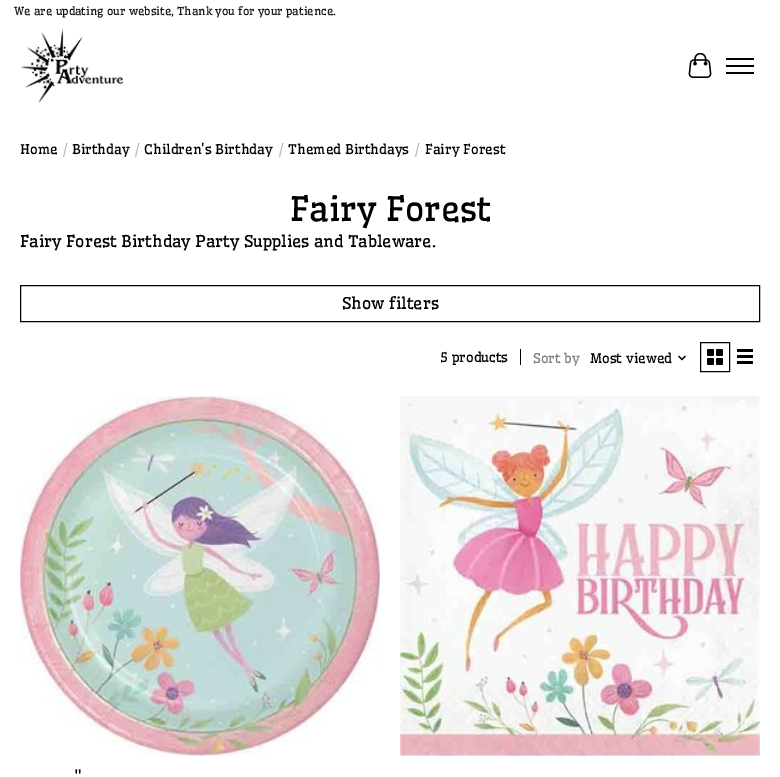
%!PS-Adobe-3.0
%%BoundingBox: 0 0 780 777
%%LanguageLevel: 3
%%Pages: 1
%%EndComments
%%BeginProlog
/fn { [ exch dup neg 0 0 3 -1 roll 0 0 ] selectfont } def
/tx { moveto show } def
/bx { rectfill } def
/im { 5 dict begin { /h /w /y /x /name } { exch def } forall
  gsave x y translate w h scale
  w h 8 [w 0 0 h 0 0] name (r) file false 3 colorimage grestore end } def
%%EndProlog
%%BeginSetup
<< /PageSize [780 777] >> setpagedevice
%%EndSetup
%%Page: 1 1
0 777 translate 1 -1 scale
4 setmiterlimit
1 setgray
0 0 780 777 bx
/Wellfleet-Regular 11.1 fn
0.086 0.082 0.082 setrgbcolor
(We are updating our website, Thank you for your patience.) 14 15 tx
(image0.raw) 20 28 103 75 im
(image1.raw) 688 53 24 25 im
0 setgray
726 65 28 2 bx
726 58 28 2 bx
726 72 28 2 bx
/Wellfleet-Regular 13.25 fn
(Home) 20 154 tx
0.702 setgray
(/) 63 154 tx
0 setgray
(Birthday) 72 154 tx
0.702 setgray
(/) 135 154 tx
0 setgray
(Children's Birthday) 144 154 tx
0.702 setgray
(/) 279 154 tx
0 setgray
(Themed Birthdays) 288 154 tx
0.702 setgray
(/) 415 154 tx
0 setgray
(Fairy Forest) 425 154 tx
/Wellfleet-Regular 33.25 fn
(Fairy Forest) 290 221 tx
/Wellfleet-Regular 16 fn
(Fairy Forest Birthday Party Supplies and Tableware.) 20 247 tx
20.5 285.5 739 36 rectstroke
(Show filters) 342 309 tx
/Wellfleet-Regular 13.25 fn
(5 products) 440 362 tx
520 349 1 16 bx
0.502 setgray
(Sort by) 533 363 tx
0 setgray
(Most viewed) 590 363 tx
(image2.raw) 678 355 8 6 im
700.5 342.5 29 29 rectstroke
(image3.raw) 707 349 16 16 im
737 349 16 3 bx
737 355 16 3 bx
737 361 16 3 bx
(image4.raw) 400 396 360 360 im
(image5.raw) 20 396 360 360 im
/Wellfleet-Regular 16 fn
(") 74 783 tx
showpage
%%EOF
